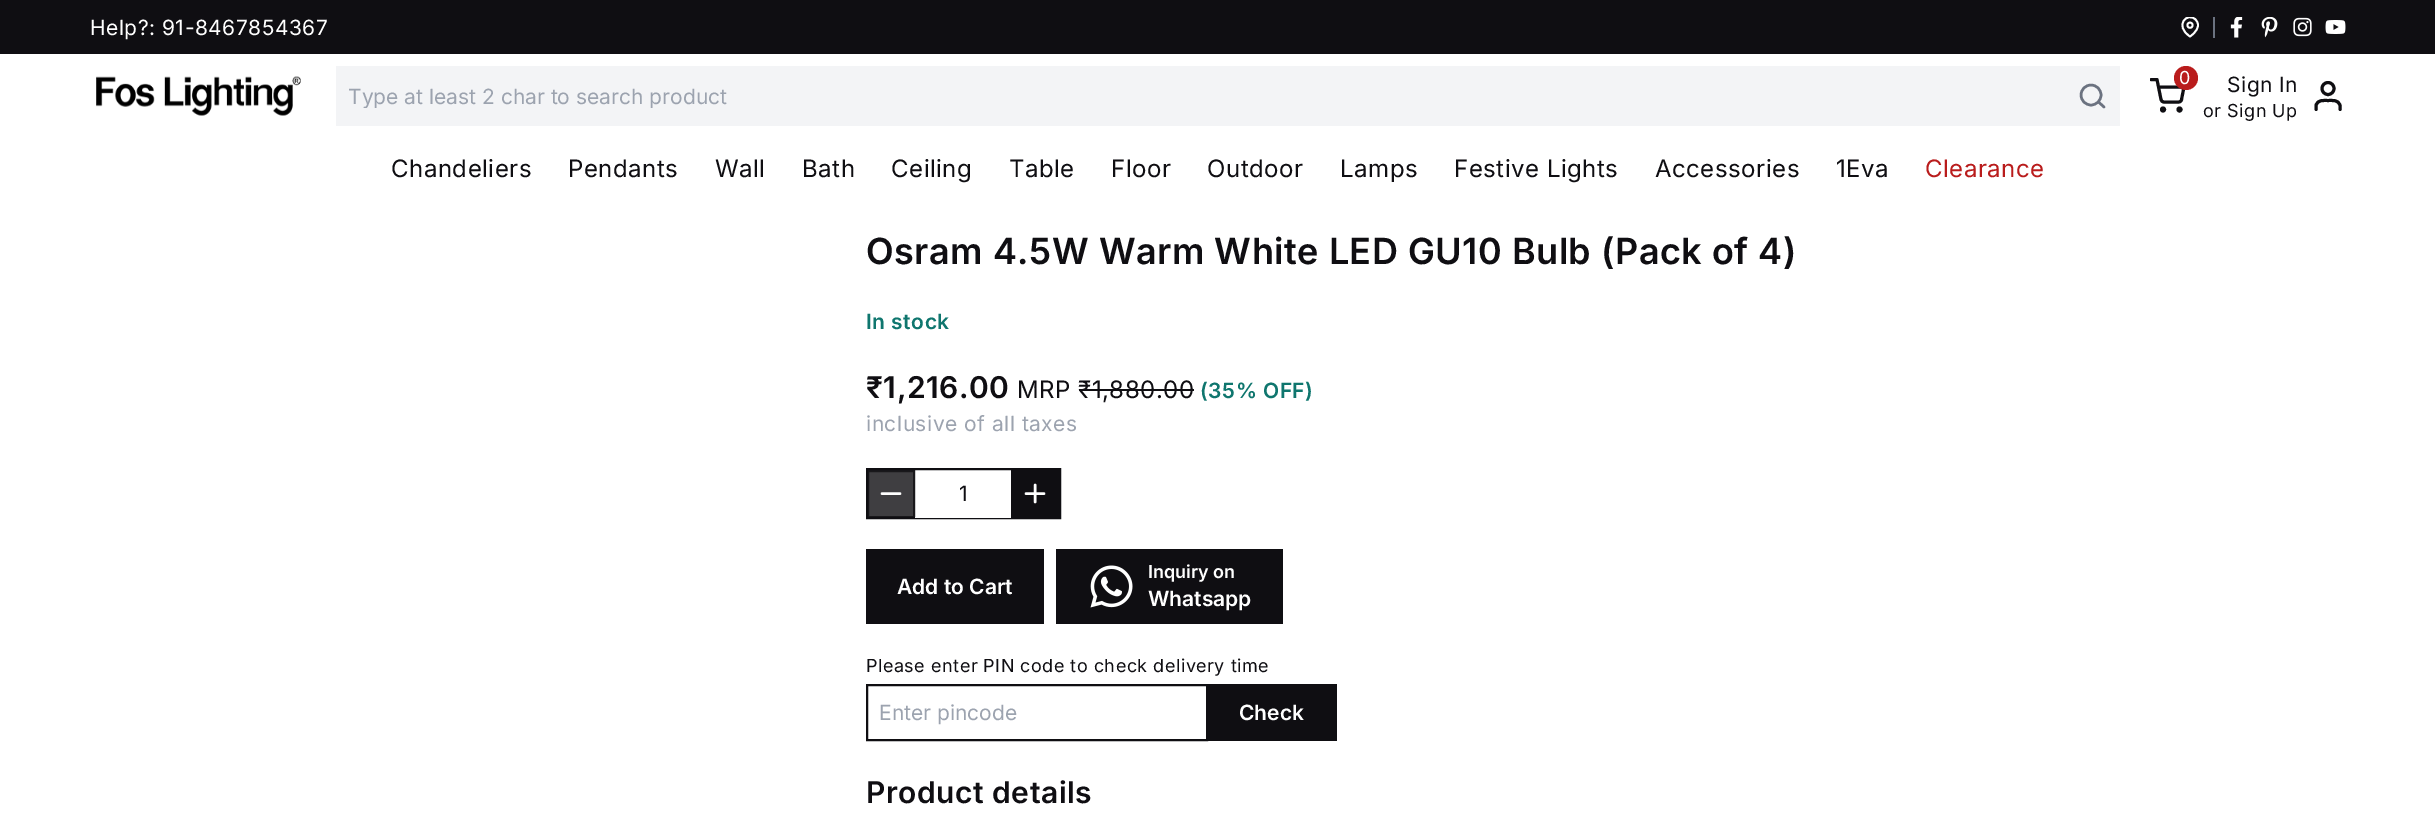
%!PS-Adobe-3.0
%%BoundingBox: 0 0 2435 813
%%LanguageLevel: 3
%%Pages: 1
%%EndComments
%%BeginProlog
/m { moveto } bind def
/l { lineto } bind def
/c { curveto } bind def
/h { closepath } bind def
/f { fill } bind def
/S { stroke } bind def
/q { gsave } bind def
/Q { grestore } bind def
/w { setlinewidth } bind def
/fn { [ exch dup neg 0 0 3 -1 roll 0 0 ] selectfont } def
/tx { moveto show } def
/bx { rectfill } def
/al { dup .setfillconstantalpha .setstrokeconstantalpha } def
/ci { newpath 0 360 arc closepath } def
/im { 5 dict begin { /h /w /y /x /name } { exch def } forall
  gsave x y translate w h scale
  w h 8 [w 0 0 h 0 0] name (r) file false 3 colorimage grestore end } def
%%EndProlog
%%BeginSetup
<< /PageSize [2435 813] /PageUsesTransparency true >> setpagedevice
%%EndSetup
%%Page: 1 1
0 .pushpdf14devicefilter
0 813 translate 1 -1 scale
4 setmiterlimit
1 setgray
0 0 2435 813 bx
0.059 0.055 0.071 setrgbcolor
0 0 2435 54 bx
/Inter-Regular 21 fn
1 setgray
90 35 m 0.5 0 (Help?: 91-8467854367) ashow
q
2180 17 21 21 rectclip
1.8 w
1 setlinecap
1 setlinejoin
2198 25 m 2198 31.5 2190 36.5 2190 36.5 c 2173.5 25.5 2187.5 11.5 2195.5 19.5 c 2197 21 2198 23 2198 25 c h S
Q
1.8 w
2190 25.2 2.6 ci S
0.42 0.447 0.502 setrgbcolor
2213 17 2 21 bx
(image0.raw) 2230 17 13 21 im
(image1.raw) 2261 17 17 21 im
(image2.raw) 2293 17 19 20 im
(image3.raw) 2325 20 21 14 im
(image4.raw) 96 76 205 40 im
0.953 0.957 0.965 setrgbcolor
336 66 1784 60 bx
q
348 83 1718 25 rectclip
0.612 0.639 0.686 setrgbcolor
(Type at least 2 char to search product) 348 104 tx
Q
0.42 0.447 0.502 setrgbcolor
2.5 w
2091 95 10 ci S
1 setlinecap
1 setlinejoin
2104 107 m 2098.5 102 l S
q
2150 78 36 36 rectclip
0.059 0.055 0.071 setrgbcolor
3 w
2151 79.5 m 2157 79.5 l 2161 99.5 l 2161.5 101 2162.5 102 2164 102 c 2178.5 102 l 2180 102 2181.5 101 2181.5 99.5 c 2184 87 l 2158.5 87 l S
Q
0.725 0.11 0.11 setrgbcolor
2186 78 12 ci f
/Inter-Regular 18 fn
1 setgray
2179 84 m 0.5 0 (0) ashow
0.059 0.055 0.071 setrgbcolor
3 w
0 setlinecap
0 setlinejoin
2163 109.5 1.5 ci S
2179.5 109.5 1.5 ci S
/Inter-Regular 21 fn
2227 92 m 0.5 0 (Sign In) ashow
/Inter-Regular 18 fn
2203 117 m 0.5 0 (or Sign Up) ashow
1 setlinecap
1 setlinejoin
2340 109.5 m 2340 105.5 l 2338.5 99.5 2332.5 100.5 2328 100.5 c 2323.5 100.5 2317.5 99.5 2316 105.5 c 2316 109.5 l S
0 setlinecap
0 setlinejoin
2328 88.5 6 ci S
/Inter-Regular 24 fn
391 177 m 0.5 0 (Chandeliers) ashow
568 177 m 0.5 0 (Pendants) ashow
715 177 m 0.5 0 (Wall) ashow
802 177 m 0.5 0 (Bath) ashow
891 177 m 0.5 0 (Ceiling) ashow
1009 177 m 0.5 0 (Table) ashow
1111 177 m 0.5 0 (Floor) ashow
1207 177 m 0.5 0 (Outdoor) ashow
1340 177 m 0.5 0 (Lamps) ashow
1454 177 m 0.5 0 (Festive Lights) ashow
1655 177 m 0.5 0 (Accessories) ashow
1836 177 m 0.5 0 (1Eva) ashow
0.725 0.11 0.11 setrgbcolor
1925 177 m 0.5 0 (Clearance) ashow
/Inter-SemiBold 36 fn
0.059 0.055 0.071 setrgbcolor
866 264 m 0.5 0 (Osram 4.5W Warm White LED GU10 Bulb \(Pack of 4\)) ashow
/Inter-SemiBold 21 fn
0.059 0.463 0.431 setrgbcolor
866 329 m 0.5 0 (In stock) ashow
/Inter-SemiBold 30 fn
0.059 0.055 0.071 setrgbcolor
866 398 m 0.5 0 (₹1,216.00) ashow
/Inter-Regular 24 fn
1017 398 m 0.5 0 (MRP ₹1,880.00) ashow
1079 389 115 2 bx
/Inter-SemiBold 21 fn
0.059 0.463 0.431 setrgbcolor
1200 398 m 0.5 0 (\(35% OFF\)) ashow
/Inter-Regular 21 fn
0.612 0.639 0.686 setrgbcolor
866 431 m 0.5 0 (inclusive of all taxes) ashow
0.059 0.055 0.071 setrgbcolor
2 w
867 469 193 49 rectstroke
0.8 al
868 470 47 47 bx
868 471 46 46 rectstroke
1 al
1 setgray
2.5 w
1 setlinecap
1 setlinejoin
882 493.5 m 900 493.5 l S
915 517 96 1 bx
0.059 0.055 0.071 setrgbcolor
(1) 959 501 tx
1011 470 48 47 bx
1 setgray
1035 485 m 1035 502 l 1026 493.5 m 1044 493.5 l S
0.059 0.055 0.071 setrgbcolor
866 549 178 75 bx
/Inter-SemiBold 21 fn
1 setgray
(Add to Cart) 897 594 tx
0.059 0.055 0.071 setrgbcolor
1056 549 227 75 bx
(image5.raw) 1090 565 43 43 im
/Inter-SemiBold 18 fn
1 setgray
(Inquiry on) 1148 578 tx
/Inter-SemiBold 21 fn
(Whatsapp) 1148 606 tx
/Inter-Regular 18 fn
0.059 0.055 0.071 setrgbcolor
866 672 m 0.5 0 (Please enter PIN code to check delivery time) ashow
2 w
0 setlinecap
0 setlinejoin
867 685 340 55 rectstroke
/Inter-Regular 21 fn
0.612 0.639 0.686 setrgbcolor
(Enter pincode) 879 720 tx
0.059 0.055 0.071 setrgbcolor
1208 684 129 57 bx
/Inter-SemiBold 21 fn
1 setgray
(Check) 1239 720 tx
/Inter-SemiBold 30 fn
0.059 0.055 0.071 setrgbcolor
866 803 m 0.5 0 (Product details) ashow
.poppdf14devicefilter showpage
%%EOF
